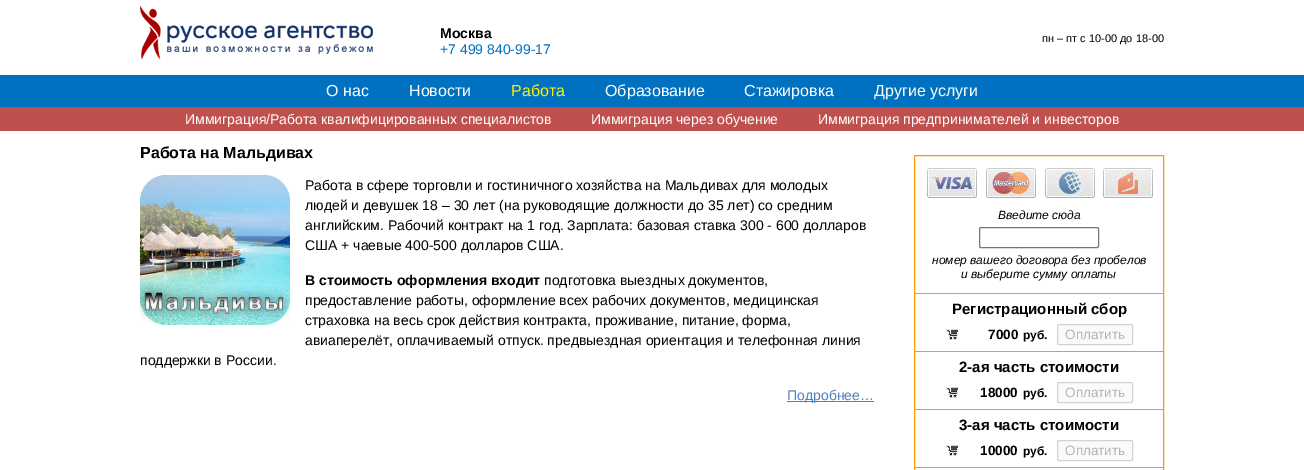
%!PS-Adobe-3.0
%%BoundingBox: 0 0 1304 470
%%LanguageLevel: 3
%%Pages: 1
%%EndComments
%%BeginProlog
/f { fill } bind def
/S { stroke } bind def
/q { gsave } bind def
/Q { grestore } bind def
/fn { [ exch dup neg 0 0 3 -1 roll 0 0 ] selectfont } def
/tx { moveto show } def
/bx { rectfill } def
/rr { 5 dict begin { /r /h /w /y /x } { exch def } forall
  x r add y moveto x w add y 2 copy h add r arct x w add y h add x 1 index r arct
  x y h add x y r arct x y 2 copy exch w add exch r arct closepath end } def
/im { 5 dict begin { /h /w /y /x /name } { exch def } forall
  gsave x y translate w h scale
  w h 8 [w 0 0 h 0 0] name (r) file false 3 colorimage grestore end } def
%%EndProlog
%%BeginSetup
<< /PageSize [1304 470] >> setpagedevice
%%EndSetup
%%Page: 1 1
0 470 translate 1 -1 scale
4 setmiterlimit
1 setgray
0 0 1304 470 bx
(image0.raw) 140 5 233 54 im
/LiberationSans-Bold 14 fn
0 setgray
(Москва) 440 38 tx
/LiberationSans-Regular 14 fn
0 0.439 0.753 setrgbcolor
(+7 499 840-99-17) 440 54 tx
/LiberationSans-Regular 11 fn
0 setgray
(пн – пт с 10-00 до 18-00) 1042 42 tx
0 0.439 0.753 setrgbcolor
0 75 1304 32 bx
/LiberationSans-Regular 16 fn
1 setgray
(О нас) 326 96 tx
(Новости) 409 96 tx
1 0.941 0 setrgbcolor
(Работа) 511 96 tx
1 setgray
(Образование) 605 96 tx
(Стажировка) 744 96 tx
(Другие услуги) 874 96 tx
0.753 0.314 0.302 setrgbcolor
0 107 1304 24 bx
/LiberationSans-Regular 14 fn
1 setgray
(Иммиграция/Работа квалифицированных специалистов) 185 124 tx
(Иммиграция через обучение) 591 124 tx
(Иммиграция предпринимателей и инвесторов) 818 124 tx
/LiberationSans-Bold 16 fn
0 setgray
(Работа на Мальдивах) 140 158 tx
(image1.raw) 140 175 150 150 im
/LiberationSans-Regular 14 fn
(Работа в сфере торговли и гостиничного хозяйства на Мальдивах для молодых) 305 190 tx
(людей и девушек 18 – 30 лет \(на руководящие должности до 35 лет\) со средним) 305 210 tx
(английским. Рабочий контракт на 1 год. Зарплата: базовая ставка 300 - 600 долларов) 305 230 tx
(США + чаевые 400-500 долларов США.) 305 250 tx
/LiberationSans-Bold 14 fn
(В стоимость оформления входит) 305 285 tx
/LiberationSans-Regular 14 fn
(подготовка выездных документов,) 544 285 tx
(предоставление работы, оформление всех рабочих документов, медицинская) 305 305 tx
(страховка на весь срок действия контракта, проживание, питание, форма,) 305 325 tx
(авиаперелёт, оплачиваемый отпуск. предвыездная ориентация и телефонная линия) 305 345 tx
(поддержки в России.) 140 365 tx
0.31 0.506 0.741 setrgbcolor
787 401 87 1 bx
(Подробнее…) 787 400 tx
1 0.6 0 setrgbcolor
914.5 155.5 249 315 rectstroke
915 293 248 1 bx
(image2.raw) 927 168 226 30 im
/LiberationSans-Italic 12 fn
0 setgray
(Введите сюда) 998 219 tx
0.463 setgray
979.5 227.5 119 20 1.5 rr S
0 setgray
(номер вашего договора без пробелов) 932 264 tx
(и выберите сумму оплаты) 961 278 tx
1 0.6 0 setrgbcolor
915 351 248 1 bx
/LiberationSans-Bold 15 fn
0 setgray
(Регистрационный сбор) 952 314 tx
(image3.raw) 946 329 13 11 im
/LiberationSans-Bold 13.5 fn
(7000) 988 339 tx
/LiberationSans-Bold 12 fn
(руб.) 1023 339 tx
0.98 setgray
1057.5 324.5 75 20 1.5 rr q f Q
0.824 setgray
S
/LiberationSans-Regular 13.5 fn
0.706 setgray
(Оплатить) 1065 339 tx
1 0.6 0 setrgbcolor
915 409 248 1 bx
/LiberationSans-Bold 15 fn
0 setgray
(2-ая часть стоимости) 959 372 tx
(image3.raw) 946 387 13 11 im
/LiberationSans-Bold 13.5 fn
(18000) 980 397 tx
/LiberationSans-Bold 12 fn
(руб.) 1023 397 tx
0.98 setgray
1057.5 382.5 75 20 1.5 rr q f Q
0.824 setgray
S
/LiberationSans-Regular 13.5 fn
0.706 setgray
(Оплатить) 1065 397 tx
1 0.6 0 setrgbcolor
915 467 248 1 bx
/LiberationSans-Bold 15 fn
0 setgray
(3-ая часть стоимости) 959 430 tx
(image3.raw) 946 445 13 11 im
/LiberationSans-Bold 13.5 fn
(10000) 980 455 tx
/LiberationSans-Bold 12 fn
(руб.) 1023 455 tx
0.98 setgray
1057.5 440.5 75 20 1.5 rr q f Q
0.824 setgray
S
/LiberationSans-Regular 13.5 fn
0.706 setgray
(Оплатить) 1065 455 tx
showpage
%%EOF
